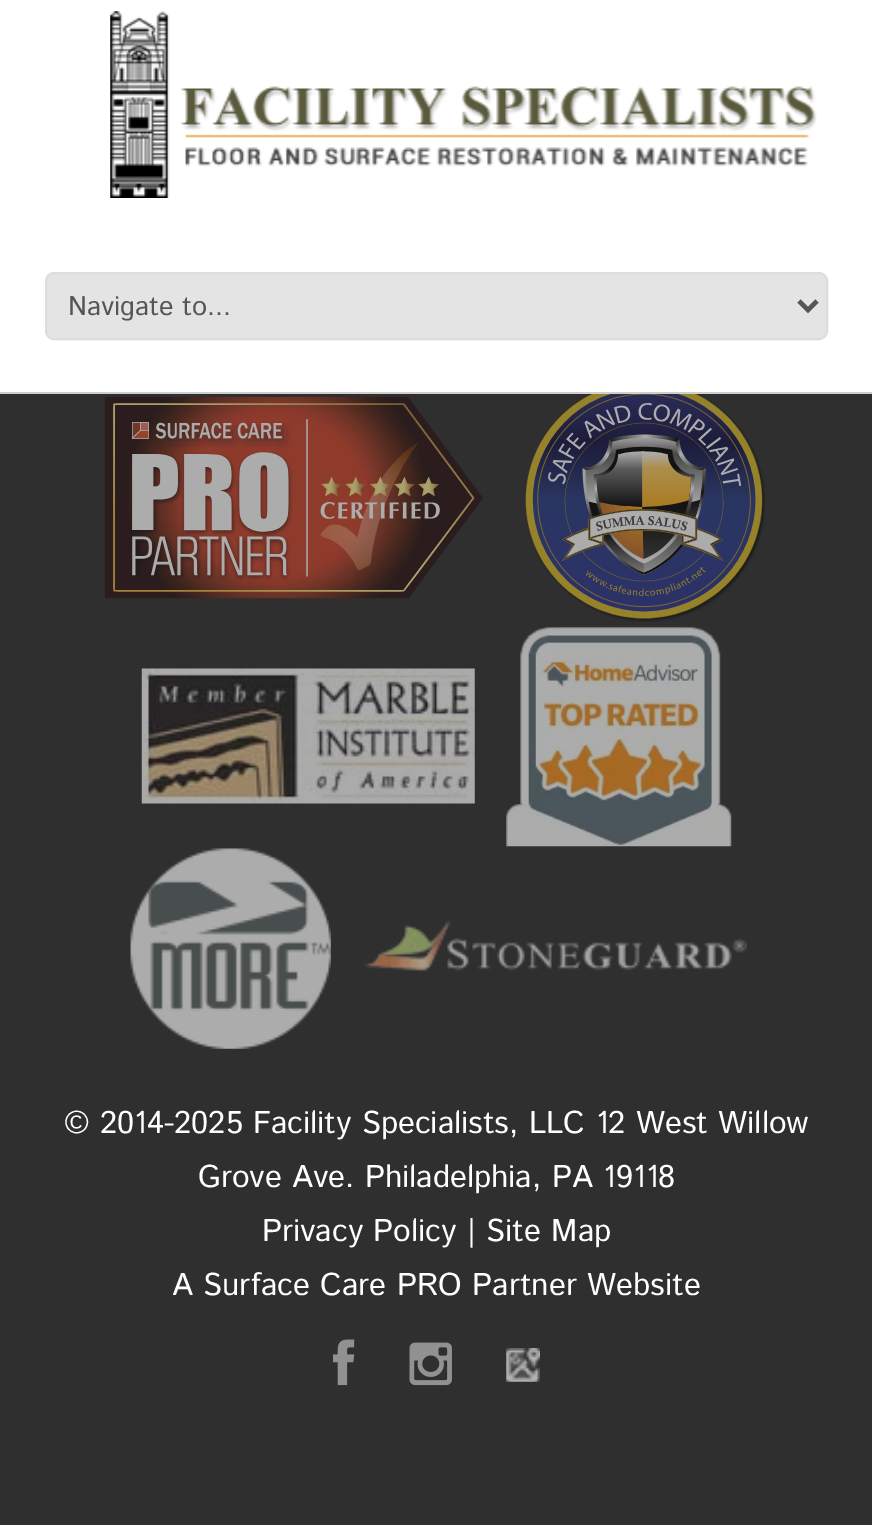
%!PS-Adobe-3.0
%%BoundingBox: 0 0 872 1525
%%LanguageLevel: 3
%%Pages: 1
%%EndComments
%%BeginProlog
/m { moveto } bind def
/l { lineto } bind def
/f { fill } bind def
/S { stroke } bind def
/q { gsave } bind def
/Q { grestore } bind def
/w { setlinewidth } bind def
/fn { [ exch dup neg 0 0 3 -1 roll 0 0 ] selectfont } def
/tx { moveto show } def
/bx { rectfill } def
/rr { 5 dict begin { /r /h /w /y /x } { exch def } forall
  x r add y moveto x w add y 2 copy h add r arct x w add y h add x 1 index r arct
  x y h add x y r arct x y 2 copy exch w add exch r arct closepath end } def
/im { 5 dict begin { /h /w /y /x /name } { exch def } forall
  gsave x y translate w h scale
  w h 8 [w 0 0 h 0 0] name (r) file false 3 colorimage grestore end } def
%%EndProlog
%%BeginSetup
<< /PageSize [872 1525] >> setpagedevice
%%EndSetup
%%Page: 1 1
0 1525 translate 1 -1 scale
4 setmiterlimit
0.184 setgray
0 0 872 1525 bx
1 setgray
0 0 872 392 bx
0.808 setgray
0 392 872 2 bx
(image0.raw) 110 11 707 187 im
0.894 setgray
46 273 781 66 8 rr q f Q
0.867 setgray
2 w
S
0.333 setgray
4.5 w
799 301 m 808 310 l 817 301 l S
/IstokWeb-Regular 27 fn
(Navigate to...) 68 315 tx
(image1.raw) 104 397 379 202 im
(image2.raw) 525 394 240 228 im
(image3.raw) 141 668 334 136 im
(image4.raw) 506 627 226 220 im
(image5.raw) 130 848 201 201 im
(image6.raw) 364 920 383 51 im
/IstokWeb-Regular 31.5 fn
1 setgray
(© 2014-2025 Facility Specialists, LLC 12 West Willow) 64 1133 tx
(Grove Ave. Philadelphia, PA 19118) 198 1187 tx
(Privacy Policy | Site Map) 262 1241 tx
(A Surface Care PRO Partner Website) 172 1295 tx
(image7.raw) 333 1339 22 47 im
(image8.raw) 409 1342 43 44 im
(image9.raw) 506 1348 34 34 im
showpage
%%EOF
